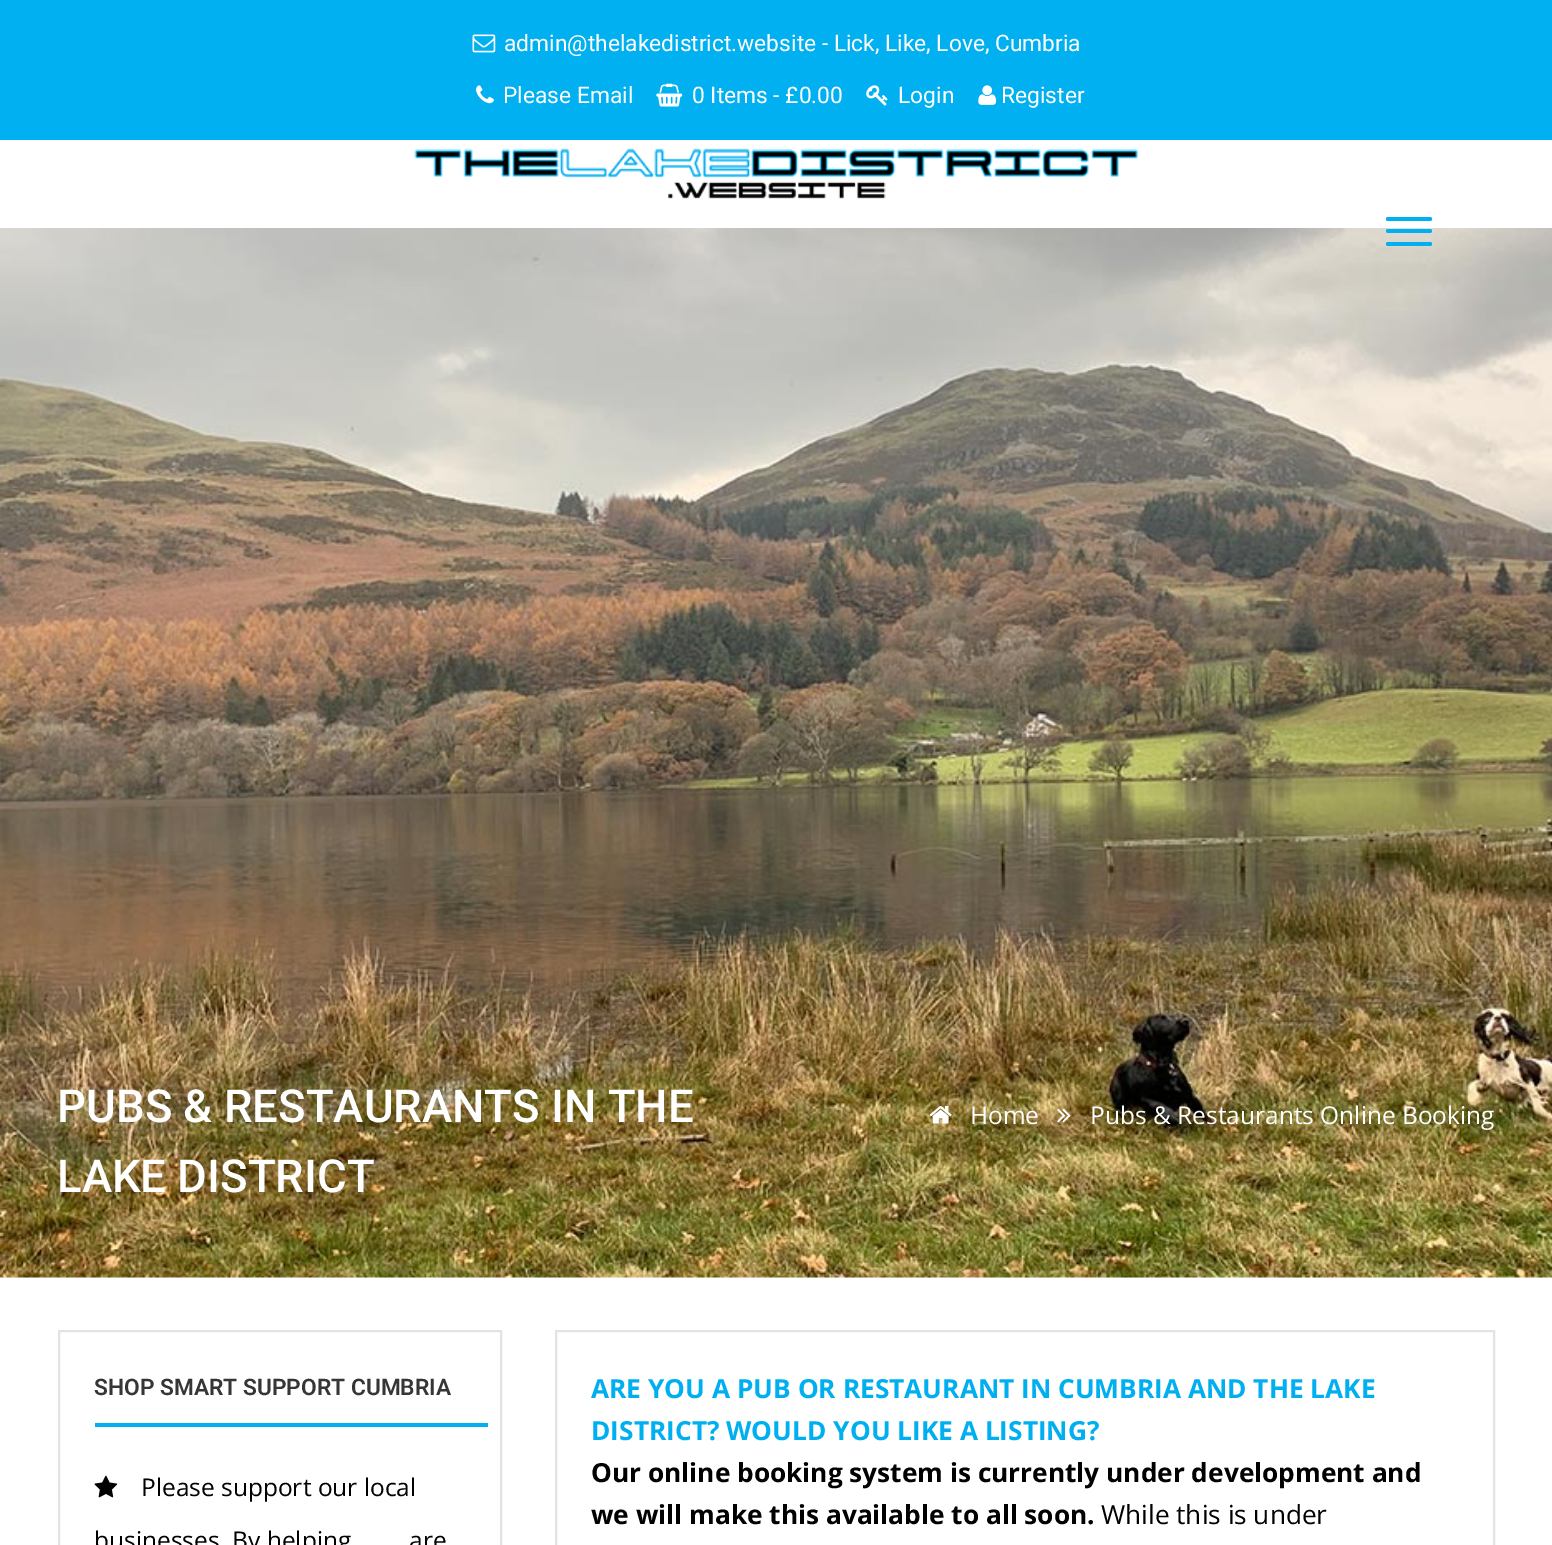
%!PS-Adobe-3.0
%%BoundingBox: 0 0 1552 1545
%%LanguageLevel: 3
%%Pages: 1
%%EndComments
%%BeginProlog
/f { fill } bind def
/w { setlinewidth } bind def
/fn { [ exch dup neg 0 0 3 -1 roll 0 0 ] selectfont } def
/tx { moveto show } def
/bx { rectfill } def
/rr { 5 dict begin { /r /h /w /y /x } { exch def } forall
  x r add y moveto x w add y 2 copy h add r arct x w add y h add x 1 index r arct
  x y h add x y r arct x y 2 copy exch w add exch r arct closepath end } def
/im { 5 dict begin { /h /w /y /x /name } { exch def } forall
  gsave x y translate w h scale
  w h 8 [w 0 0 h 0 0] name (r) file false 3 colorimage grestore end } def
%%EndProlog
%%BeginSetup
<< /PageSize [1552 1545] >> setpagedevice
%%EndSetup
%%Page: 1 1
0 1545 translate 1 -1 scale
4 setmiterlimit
1 setgray
0 0 1552 1545 bx
0 0.69 0.941 setrgbcolor
0 0 1552 140 bx
(image0.raw) 472 34 24 19 im
/Roboto-Regular 22.75 fn
1 setgray
(admin@thelakedistrict.website - Lick, Like, Love, Cumbria) 504 51 tx
(image1.raw) 476 85 18 19 im
(Please Email) 503 103 tx
(image2.raw) 656 83 27 24 im
(0 Items - £0.00) 692 103 tx
(image3.raw) 866 85 22 21 im
(Login) 898 103 tx
(image4.raw) 978 85 19 20 im
(Register) 1001 103 tx
(image5.raw) 414 148 724 51 im
0 0.69 0.941 setrgbcolor
1386 217 46 4 2 rr f
(image6.raw) 0 228 1552 1050 im
1386 229 46 4 2 rr f
1386 242 46 4 2 rr f
/Roboto-Medium 45.5 fn
1 setgray
(PUBS & RESTAURANTS IN THE) 57 1122 tx
(LAKE DISTRICT) 57 1192 tx
(image7.raw) 929 1106 23 18 im
/OpenSans-Regular 24.5 fn
(Home) 970 1124 tx
(image8.raw) 1057 1108 14 15 im
(Pubs & Restaurants Online Booking) 1090 1124 tx
0.89 setgray
2 w
59 1331 442 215 rectstroke
/Roboto-SemiBold 22.75 fn
0.212 setgray
(SHOP SMART SUPPORT CUMBRIA) 94 1395 tx
0 0.69 0.941 setrgbcolor
95 1423 393 4 bx
(image9.raw) 94 1475 24 23 im
/OpenSans-Regular 24.5 fn
0 setgray
(Please support our local) 141 1496 tx
(businesses. By helping) 94 1549 tx
(are) 409 1549 tx
0.89 setgray
556 1331 938 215 rectstroke
/OpenSans-Bold 26.25 fn
0 0.686 0.937 setrgbcolor
(ARE YOU A PUB OR RESTAURANT IN CUMBRIA AND THE LAKE) 591 1398 tx
(DISTRICT? WOULD YOU LIKE A LISTING?) 591 1440 tx
0 setgray
(Our online booking system is currently under development and) 591 1482 tx
(we will make this available to all soon.) 591 1524 tx
/OpenSans-Regular 26.25 fn
(While this is under) 1101 1524 tx
showpage
%%EOF
